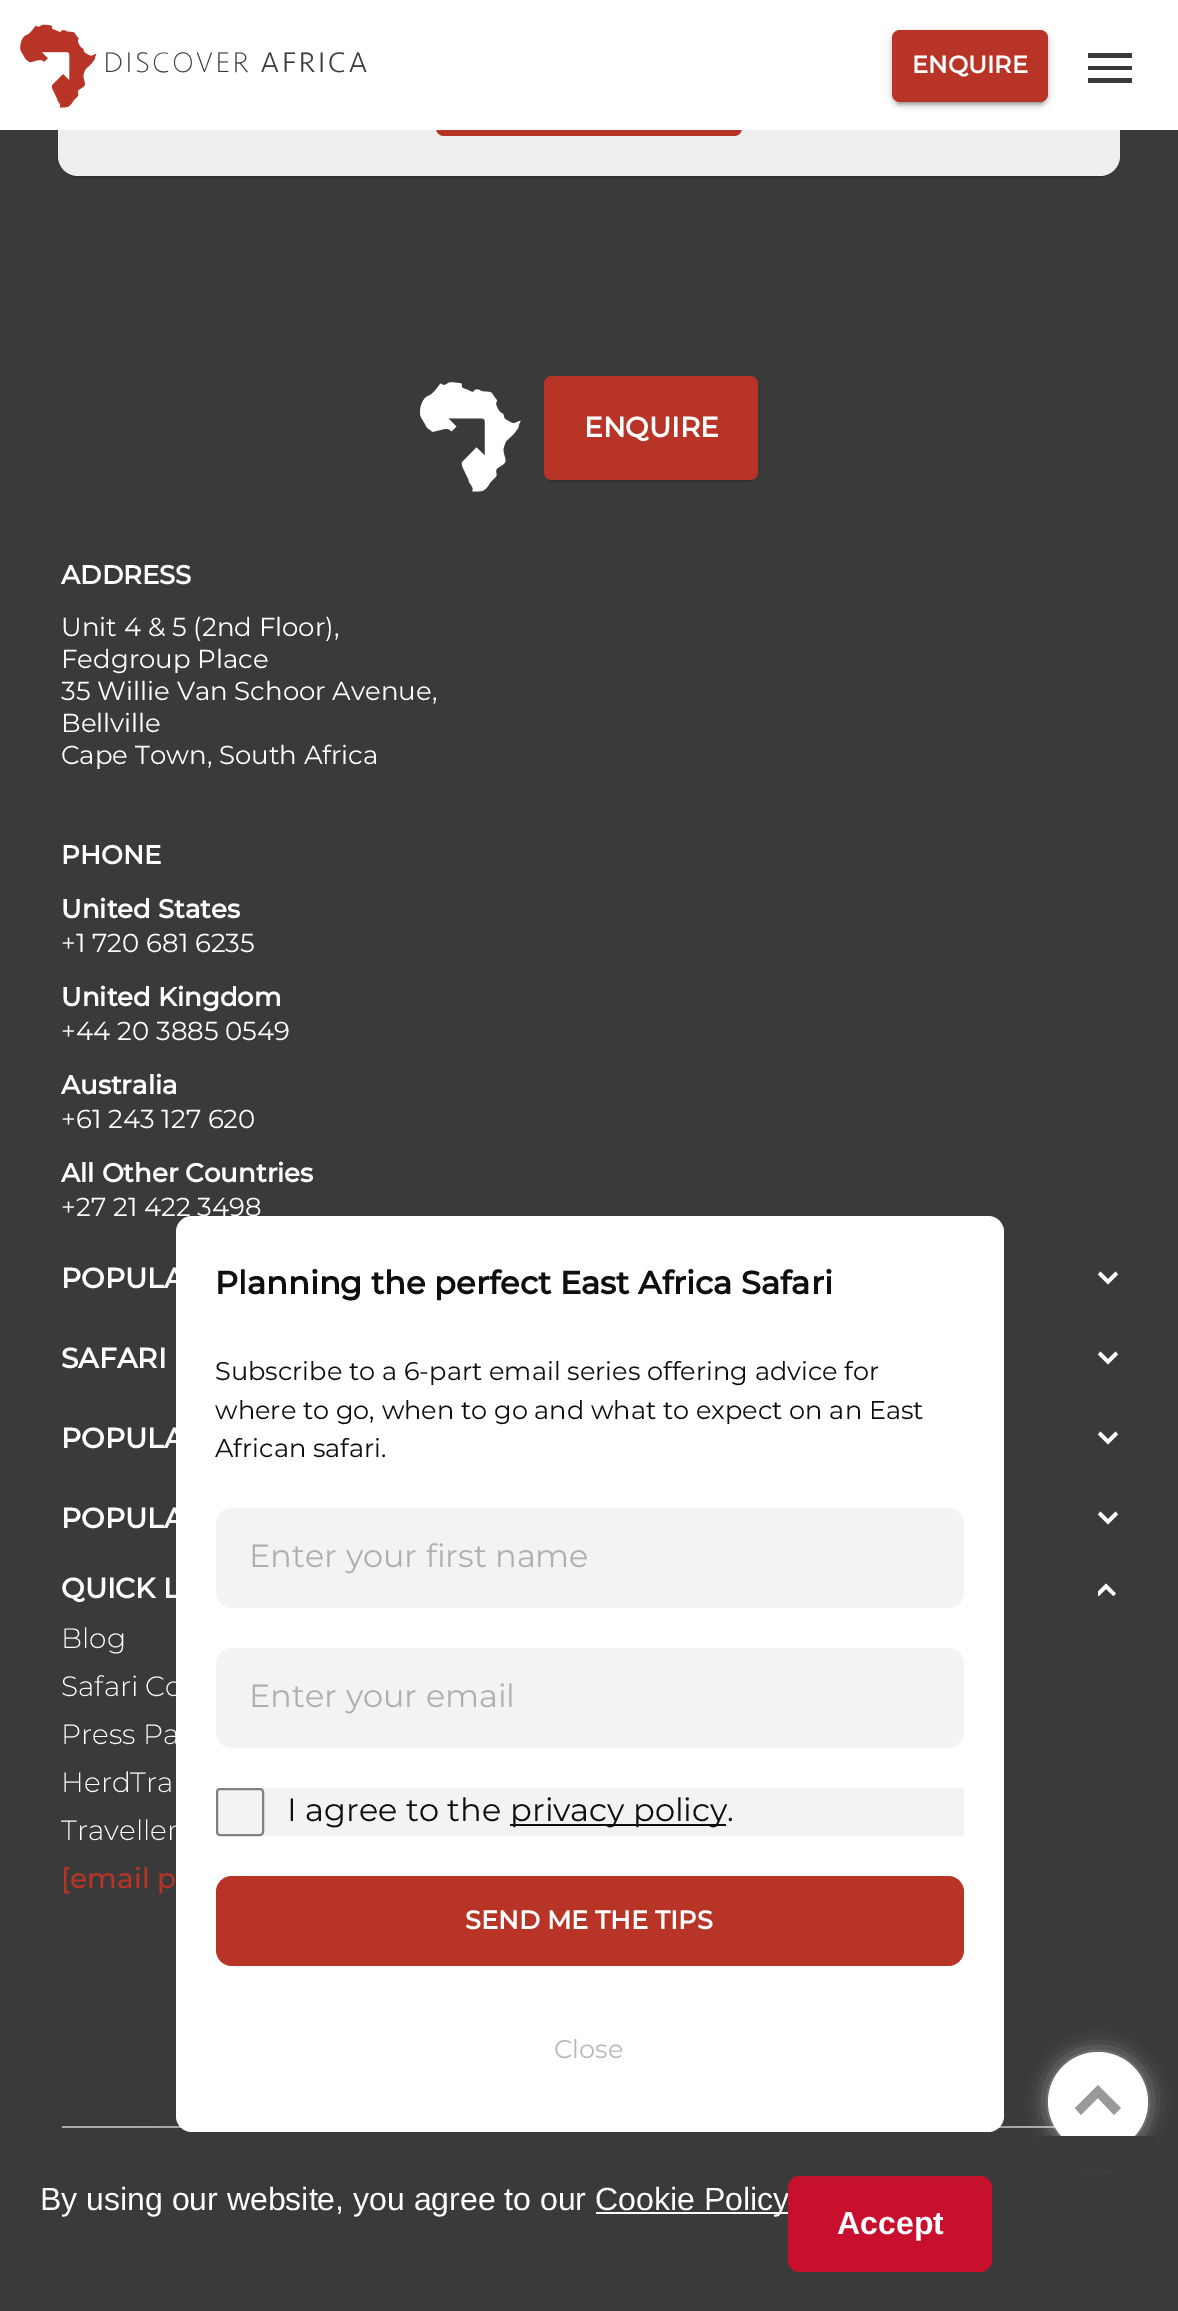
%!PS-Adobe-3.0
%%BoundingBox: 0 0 1178 2311
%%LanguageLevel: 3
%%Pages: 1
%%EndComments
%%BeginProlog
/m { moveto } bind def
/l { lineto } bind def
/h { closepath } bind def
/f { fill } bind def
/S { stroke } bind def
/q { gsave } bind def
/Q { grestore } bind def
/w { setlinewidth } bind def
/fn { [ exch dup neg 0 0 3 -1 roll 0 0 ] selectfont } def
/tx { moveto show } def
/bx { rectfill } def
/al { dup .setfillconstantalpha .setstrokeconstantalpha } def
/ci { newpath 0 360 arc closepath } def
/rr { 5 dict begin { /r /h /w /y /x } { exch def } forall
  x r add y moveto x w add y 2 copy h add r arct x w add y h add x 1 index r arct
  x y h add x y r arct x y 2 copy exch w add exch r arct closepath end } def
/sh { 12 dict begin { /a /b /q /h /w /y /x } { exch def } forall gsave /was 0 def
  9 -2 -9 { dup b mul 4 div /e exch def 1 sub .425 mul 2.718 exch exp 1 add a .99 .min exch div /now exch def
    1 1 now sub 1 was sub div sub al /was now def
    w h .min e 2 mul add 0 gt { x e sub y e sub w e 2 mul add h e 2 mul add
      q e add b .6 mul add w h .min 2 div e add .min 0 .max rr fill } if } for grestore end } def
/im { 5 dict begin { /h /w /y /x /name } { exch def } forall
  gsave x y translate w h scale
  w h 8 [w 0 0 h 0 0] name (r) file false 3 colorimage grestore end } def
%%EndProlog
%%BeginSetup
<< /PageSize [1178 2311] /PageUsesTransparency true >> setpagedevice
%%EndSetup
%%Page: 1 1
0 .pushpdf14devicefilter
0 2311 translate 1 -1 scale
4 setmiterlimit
0.227 setgray
0 0 1178 2311 bx
0 setgray
62 -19 1054 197 16 1 0.2 sh
0.933 setgray
58 -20 1062 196 20 rr f
0.722 0.204 0.149 setrgbcolor
436 36 306 100 8 rr f
1 setgray
0 0 1178 130 bx
(image0.raw) 20 24 347 84 im
0 setgray
892 32 156 72 8 5 0.12 sh
892 34 156 72 8 2 0.14 sh
896 40 148 64 4 1 0.2 sh
0.722 0.204 0.149 setrgbcolor
892 30 156 72 8 rr f
/Montserrat-Bold 24 fn
1 setgray
(ENQUIRE) 912 73 tx
0.227 setgray
1088 53 44 5 bx
1088 66 44 4 bx
1088 78 44 5 bx
(image1.raw) 420 382 101 110 im
0 setgray
548 386 206 96 4 1 0.2 sh
0.722 0.204 0.149 setrgbcolor
544 376 214 104 8 rr f
/Montserrat-Bold 28 fn
1 setgray
(ENQUIRE) 584 437 tx
/Montserrat-Bold 26 fn
(ADDRESS) 61 584 tx
/Montserrat-Regular 26 fn
(Unit 4 & 5 \(2nd Floor\),) 61 636 tx
(Fedgroup Place) 61 668 tx
(35 Willie Van Schoor Avenue,) 61 700 tx
(Bellville) 61 732 tx
(Cape Town, South Africa) 61 764 tx
/Montserrat-Bold 26 fn
(PHONE) 61 864 tx
(United States) 61 918 tx
/Montserrat-Regular 26 fn
(+1 720 681 6235) 61 952 tx
/Montserrat-Bold 26 fn
(United Kingdom) 61 1006 tx
/Montserrat-Regular 26 fn
(+44 20 3885 0549) 61 1040 tx
/Montserrat-Bold 26 fn
(Australia) 61 1094 tx
/Montserrat-Regular 26 fn
(+61 243 127 620) 61 1128 tx
/Montserrat-Bold 26 fn
(All Other Countries) 61 1182 tx
/Montserrat-Regular 26 fn
(+27 21 422 3498) 61 1216 tx
/Montserrat-Bold 28 fn
(POPULA) 61 1288 tx
1098 1274.5 m 1100.5 1271.5 l 1108 1279 l 1115.5 1271.5 l 1118 1274.5 l 1108 1284.5 l h f
(SAFARI) 61 1368 tx
1098 1354.5 m 1100.5 1351.5 l 1108 1359 l 1115.5 1351.5 l 1118 1354.5 l 1108 1364.5 l h f
(POPULA) 61 1448 tx
1098 1434.5 m 1100.5 1431.5 l 1108 1439 l 1115.5 1431.5 l 1118 1434.5 l 1108 1444.5 l h f
(POPULA) 61 1528 tx
1098 1514.5 m 1100.5 1511.5 l 1108 1519 l 1115.5 1511.5 l 1118 1514.5 l 1108 1524.5 l h f
(QUICK L) 61 1598 tx
q
1098 1578 20 20 rectclip
1116 1593.5 m 1113.5 1596 l 1106 1589 l 1099 1596 l 1096 1593.5 l 1106 1583.5 l h f
Q
/Montserrat-Light 28 fn
(Blog) 61 1648 tx
(Safari Co) 61 1696 tx
(Press Pa) 61 1744 tx
(HerdTra) 61 1792 tx
(Traveller) 61 1840 tx
/Montserrat-Medium 28 fn
0.722 0.204 0.149 setrgbcolor
([email p) 61 1888 tx
0.667 setgray
62 2126 994 2 bx
0.902 0.835 0.835 setrgbcolor
1048 2052 100 100 50 10 0.6 sh
1 setgray
1098 2102 50 ci f
0.6 setgray
1121 2108 m 1114 2115 l 1098 2098 l 1081 2115 l 1075 2108 l 1098 2085 l h f
0.227 setgray
1039 2136 118 35 bx
1 setgray
596 2212 192 2 bx
/LiberationSans-Regular 32 fn
(Cookie Policy) 595 2210 tx
0.784 0.063 0.18 setrgbcolor
788 2176 204 96 12 rr f
0.212 0.239 0.302 setrgbcolor
176 1236 828 916 16 20 0.15 sh
1 setgray
176 1216 828 916 16 rr f
/Montserrat-Bold 32 fn
0.059 setgray
(Planning the perfect East Africa Safari) 215 1294 tx
/Montserrat-Regular 25.6 fn
(Subscribe to a 6-part email series offering advice for) 215 1380 tx
(where to go, when to go and what to expect on an East) 215 1419 tx
(African safari.) 215 1457 tx
0.953 setgray
216 1508 748 100 16 rr f
/Montserrat-Regular 32 fn
0.686 setgray
(Enter your first name) 249 1567 tx
0.953 setgray
216 1648 748 100 16 rr f
0.686 setgray
(Enter your email) 249 1707 tx
0.953 setgray
216 1788 748 48 bx
0.506 setgray
2 w
217 1789 46 46 3 rr S
0.059 setgray
(I agree to the) 287 1821 tx
510 1824 216 2 bx
(privacy policy.) 510 1821 tx
0.722 0.204 0.149 setrgbcolor
216 1876 748 90 16 rr f
/Montserrat-Bold 25.6 fn
1 setgray
(SEND ME THE TIPS) 465 1929 tx
/Montserrat-Regular 25.6 fn
0.718 setgray
(Close) 554 2058 tx
/LiberationSans-Regular 32 fn
1 setgray
(By using our website, you agree to our) 40 2210 tx
/LiberationSans-Bold 32 fn
(Accept) 837 2234 tx
.poppdf14devicefilter showpage
%%EOF
